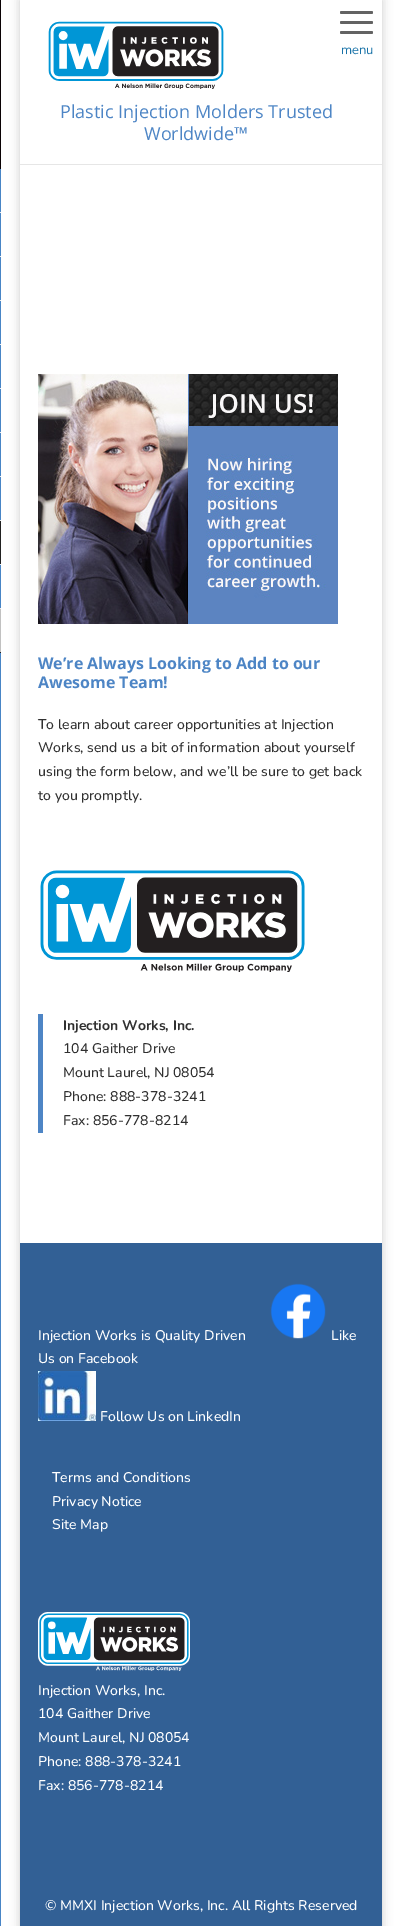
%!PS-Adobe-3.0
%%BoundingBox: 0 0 402 1926
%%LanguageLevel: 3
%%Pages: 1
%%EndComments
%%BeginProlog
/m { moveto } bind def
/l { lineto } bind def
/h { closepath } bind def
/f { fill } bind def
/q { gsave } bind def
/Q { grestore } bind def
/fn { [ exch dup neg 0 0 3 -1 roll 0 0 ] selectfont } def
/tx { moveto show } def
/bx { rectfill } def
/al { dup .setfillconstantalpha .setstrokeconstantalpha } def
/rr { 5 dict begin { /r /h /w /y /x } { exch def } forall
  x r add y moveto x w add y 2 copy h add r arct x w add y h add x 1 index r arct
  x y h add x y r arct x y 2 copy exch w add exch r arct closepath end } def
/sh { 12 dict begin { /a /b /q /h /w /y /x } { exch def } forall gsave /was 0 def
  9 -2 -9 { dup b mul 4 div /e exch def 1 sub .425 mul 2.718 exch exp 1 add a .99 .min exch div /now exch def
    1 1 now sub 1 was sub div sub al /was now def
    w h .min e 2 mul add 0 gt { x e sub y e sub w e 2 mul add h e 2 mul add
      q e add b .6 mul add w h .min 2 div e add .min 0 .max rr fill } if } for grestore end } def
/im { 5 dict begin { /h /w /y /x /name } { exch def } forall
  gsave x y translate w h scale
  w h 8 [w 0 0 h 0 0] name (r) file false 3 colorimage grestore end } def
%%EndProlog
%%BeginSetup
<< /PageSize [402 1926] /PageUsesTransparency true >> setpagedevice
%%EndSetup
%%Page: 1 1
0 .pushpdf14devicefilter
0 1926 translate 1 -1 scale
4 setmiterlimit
1 setgray
0 0 402 1926 bx
0.282 0.522 0.776 setrgbcolor
0 169 1 1757 bx
0.039 0.008 0.016 setrgbcolor
0 0 1 169 bx
0.929 setgray
0 212 1 1 bx
0 256 1 1 bx
0 300 1 1 bx
0 344 1 1 bx
0 388 1 1 bx
0 432 1 1 bx
0 476 1 1 bx
0 520 1 1 bx
0 564 1 1 bx
0.129 setgray
0 521 1 43 bx
0.929 setgray
0 608 1 1 bx
0.757 setgray
0 609 1 44 bx
0.129 setgray
0 652 1 1 bx
q
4 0 m 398 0 l 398 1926 l 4 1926 l h 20 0 m 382 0 l 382 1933 l 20 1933 l h eoclip newpath
0 setgray
20 0 362 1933 0 5 0.2 sh
Q
0.388 setgray
340 21 33 3 1.5 rr f
340 11 33 3 1.5 rr f
340 31 33 3 1.5 rr f
/Nunito-Regular 13 fn
0.098 0.451 0.659 setrgbcolor
(menu) 341 54 tx
0.902 setgray
20 164 362 1 bx
(image0.raw) 48 21 176 68 im
/OpenSans-Regular 18 fn
0.302 0.522 0.773 setrgbcolor
(Plastic Injection Molders Trusted) 60 118 tx
(Worldwide™) 144 140 tx
(image1.raw) 38 374 300 250 im
/OpenSans-Bold 16 fn
(We’re Always Looking to Add to our) 38 669 tx
(Awesome Team!) 38 688 tx
/Nunito-Medium 14 fn
0.188 setgray
(To learn about career opportunities at Injection) 38 729 tx
(Works, send us a bit of information about yourself) 38 752 tx
(using the form below, and we’ll be sure to get back) 38 776 tx
(to you promptly.) 38 800 tx
(image2.raw) 40 870 265 102 im
0.306 0.522 0.773 setrgbcolor
38 1014 5 119 bx
/Nunito-Bold 14 fn
0.188 setgray
(Injection Works, Inc.) 63 1030 tx
/Nunito-Medium 14 fn
(104 Gaither Drive) 63 1053 tx
(Mount Laurel, NJ 08054) 63 1077 tx
(Phone: 888-378-3241) 63 1101 tx
(Fax: 856-778-8214) 63 1125 tx
0.196 0.376 0.584 setrgbcolor
20 1243 362 683 bx
1 setgray
(Injection Works is Quality Driven) 38 1340 tx
(image3.raw) 270 1283 56 56 im
(Like) 331 1340 tx
(Us on Facebook) 38 1363 tx
(image4.raw) 38 1371 58 50 im
(Follow Us on LinkedIn) 100 1421 tx
(Terms and Conditions) 52 1482 tx
(Privacy Notice) 52 1506 tx
(Site Map) 52 1529 tx
(image5.raw) 38 1612 152 59 im
(Injection Works, Inc.) 38 1695 tx
(104 Gaither Drive) 38 1718 tx
(Mount Laurel, NJ 08054) 38 1742 tx
(Phone: 888-378-3241) 38 1766 tx
(Fax: 856-778-8214) 38 1790 tx
(© MMXI Injection Works, Inc. All Rights Reserved) 45 1910 tx
.poppdf14devicefilter showpage
%%EOF
